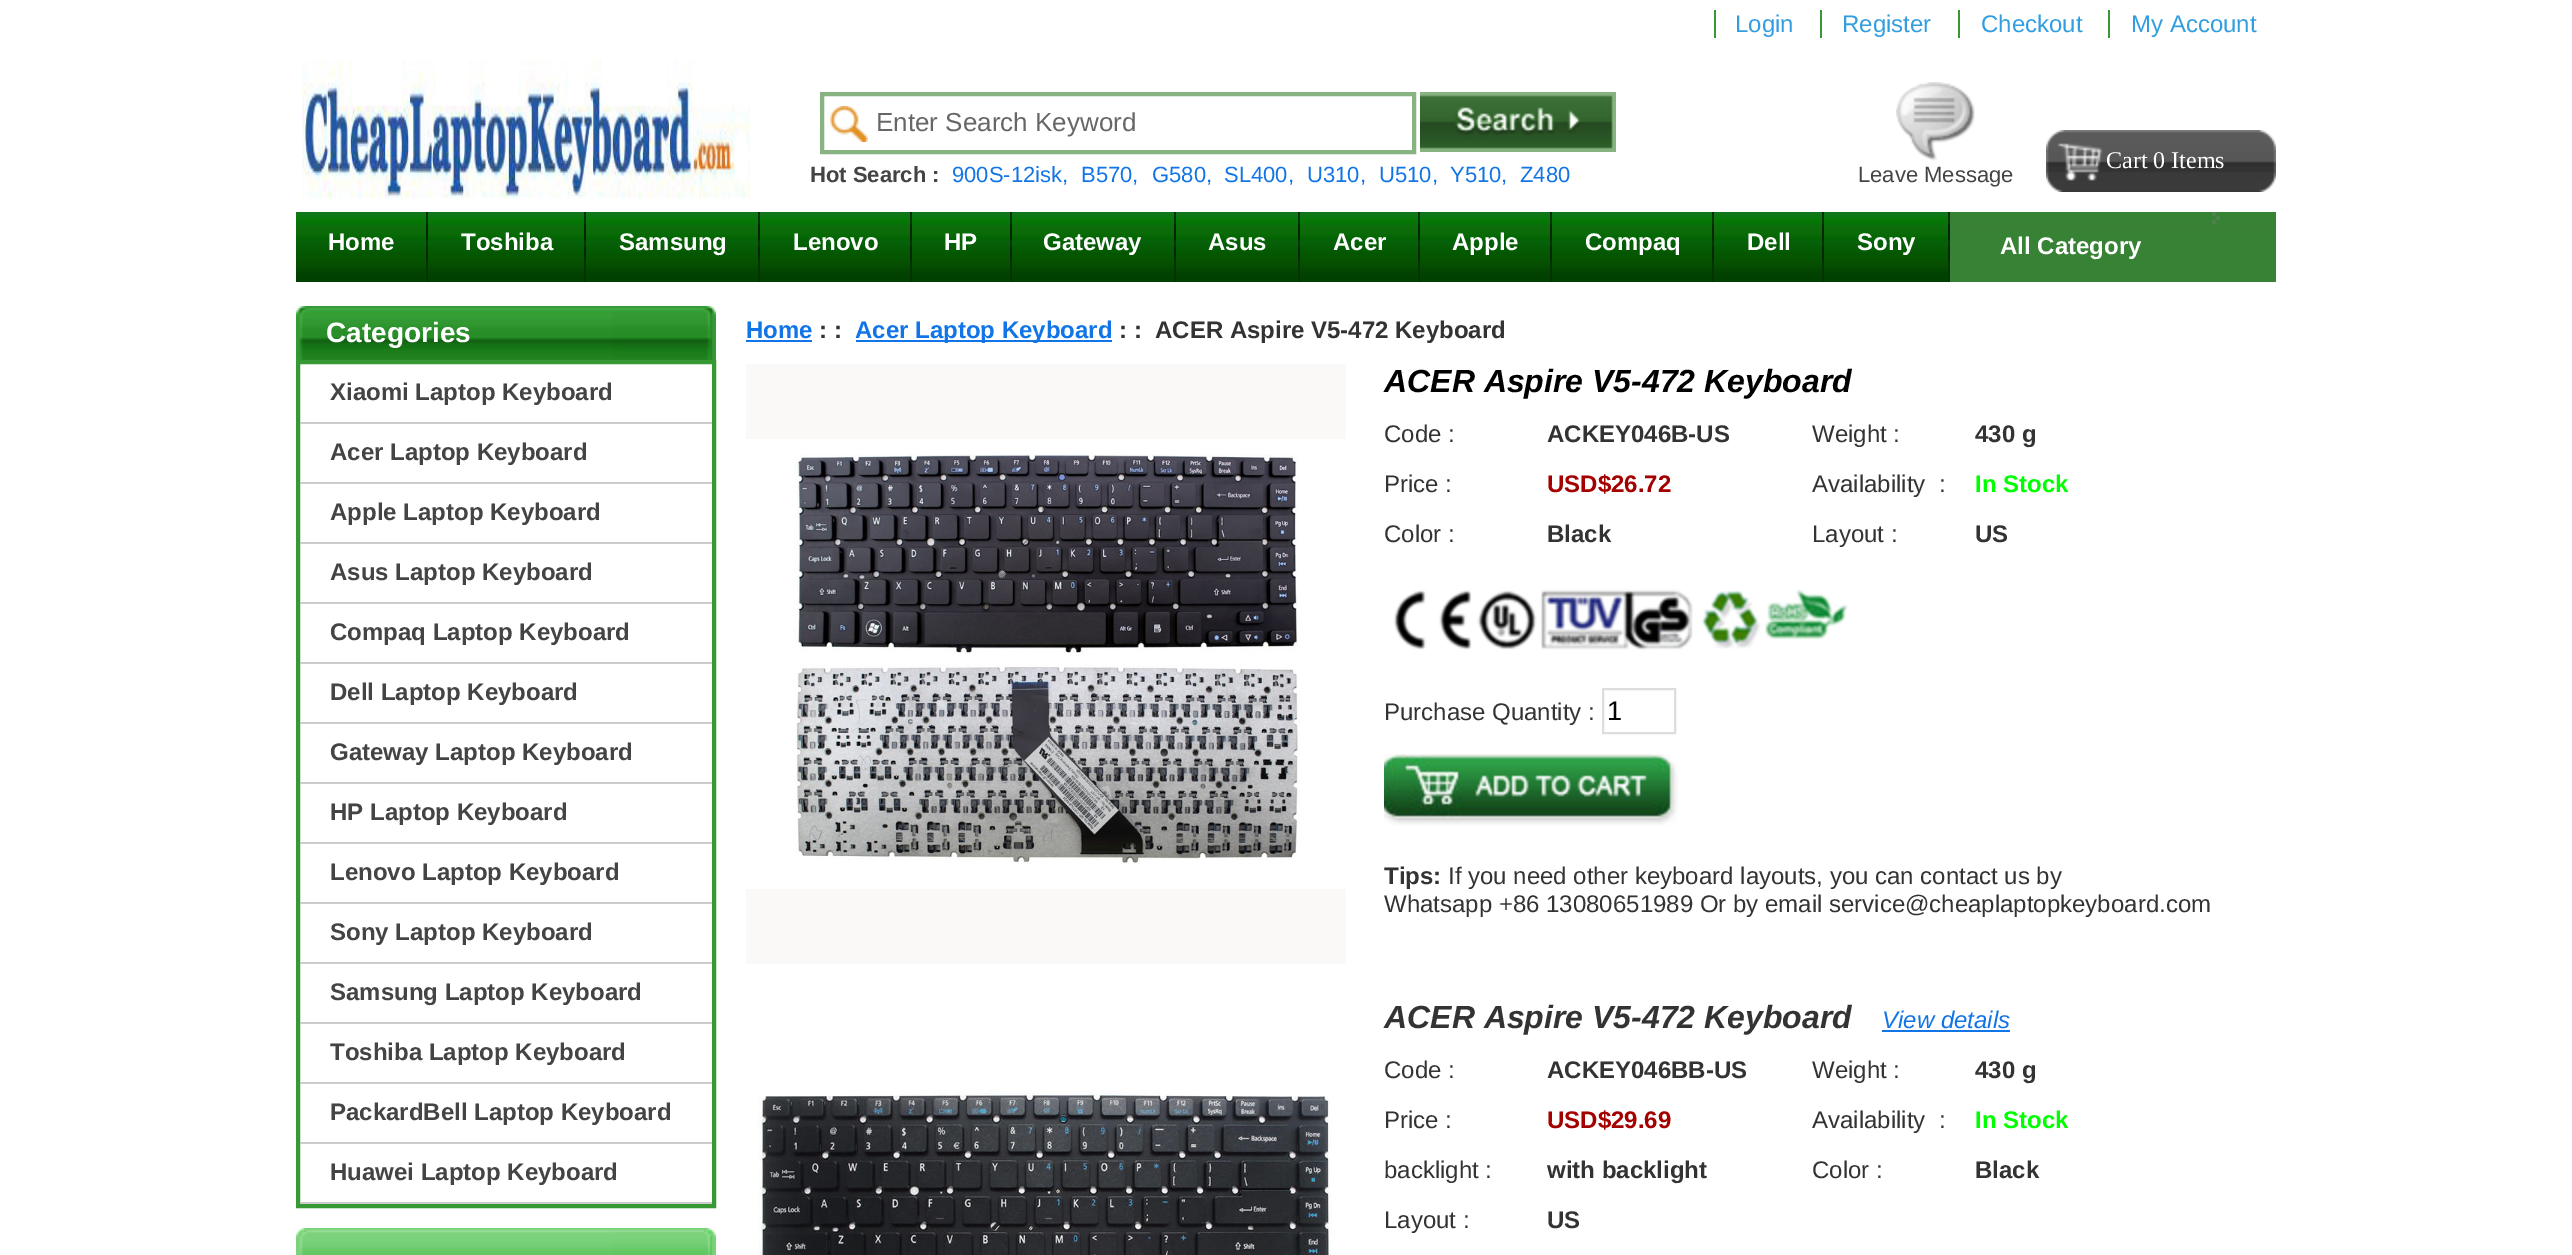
%!PS-Adobe-3.0
%%BoundingBox: 0 0 2572 1255
%%LanguageLevel: 3
%%Pages: 1
%%EndComments
%%BeginProlog
/w { setlinewidth } bind def
/fn { [ exch dup neg 0 0 3 -1 roll 0 0 ] selectfont } def
/tx { moveto show } def
/bx { rectfill } def
/im { 5 dict begin { /h /w /y /x /name } { exch def } forall
  gsave x y translate w h scale
  w h 8 [w 0 0 h 0 0] name (r) file false 3 colorimage grestore end } def
%%EndProlog
%%BeginSetup
<< /PageSize [2572 1255] >> setpagedevice
%%EndSetup
%%Page: 1 1
0 1255 translate 1 -1 scale
4 setmiterlimit
1 setgray
0 0 2572 1255 bx
/LiberationSans-Regular 24 fn
0.196 0.62 0.878 setrgbcolor
(Login) 1735 32 tx
0.216 0.6 0.204 setrgbcolor
1714 10 2 28 bx
0.196 0.62 0.878 setrgbcolor
(Register) 1842 32 tx
0.216 0.6 0.204 setrgbcolor
1820 10 2 28 bx
0.196 0.62 0.878 setrgbcolor
(Checkout) 1981 32 tx
0.216 0.6 0.204 setrgbcolor
1958 10 2 28 bx
0.196 0.62 0.878 setrgbcolor
(My Account) 2131 32 tx
0.216 0.6 0.204 setrgbcolor
2108 10 2 28 bx
(image0.raw) 302 60 448 139 im
0.525 0.702 0.498 setrgbcolor
4 w
822 94 592 58 rectstroke
(image1.raw) 830 106 38 36 im
/LiberationSans-Regular 26 fn
0.4 setgray
(Enter Search Keyword) 876 131 tx
(image2.raw) 1420 92 196 60 im
/LiberationSans-Bold 22 fn
0.267 setgray
(Hot Search :) 810 182 tx
/LiberationSans-Regular 22 fn
0.071 0.459 0.906 setrgbcolor
(900S-12isk,) 952 182 tx
(B570,) 1081 182 tx
(G580,) 1152 182 tx
(SL400,) 1224 182 tx
(U310,) 1307 182 tx
(U510,) 1379 182 tx
(Y510,) 1450 182 tx
(Z480) 1520 182 tx
(image3.raw) 2046 130 230 62 im
/LiberationSerif-Regular 24 fn
1 setgray
(Cart 0 Items) 2106 168 tx
(image4.raw) 1896 82 79 79 im
/LiberationSans-Regular 22 fn
0.267 setgray
(Leave Message) 1858 182 tx
(image5.raw) 1950 212 326 70 im
(image6.raw) 426 212 1524 70 im
(image7.raw) 296 212 130 70 im
/LiberationSans-Bold 24 fn
1 setgray
(Home) 328 250 tx
(image8.raw) 428 212 156 70 im
(Toshiba) 461 250 tx
(image9.raw) 586 212 172 70 im
(Samsung) 619 250 tx
(image10.raw) 760 212 150 70 im
(Lenovo) 793 250 tx
(image11.raw) 912 212 98 70 im
(HP) 944 250 tx
(image12.raw) 1012 212 162 70 im
(Gateway) 1043 250 tx
(image13.raw) 1176 212 122 70 im
(Asus) 1208 250 tx
(image14.raw) 1300 212 118 70 im
(Acer) 1333 250 tx
(image7.raw) 1420 212 130 70 im
(Apple) 1452 250 tx
(image15.raw) 1552 212 160 70 im
(Compaq) 1585 250 tx
(image16.raw) 1714 212 108 70 im
(Dell) 1747 250 tx
(image17.raw) 1824 212 124 70 im
(Sony) 1857 250 tx
(image18.raw) 2212 212 8 12 im
(All Category) 2000 254 tx
(image19.raw) 296 306 420 54 im
/LiberationSans-Bold 28 fn
(Categories) 326 342 tx
0.216 0.6 0.204 setrgbcolor
298 362 416 844 rectstroke
0.8 setgray
300 422 412 2 bx
/LiberationSans-Bold 24 fn
0.267 setgray
(Xiaomi Laptop Keyboard) 330 400 tx
0.8 setgray
300 482 412 2 bx
0.267 setgray
(Acer Laptop Keyboard) 330 460 tx
0.8 setgray
300 542 412 2 bx
0.267 setgray
(Apple Laptop Keyboard) 330 520 tx
0.8 setgray
300 602 412 2 bx
0.267 setgray
(Asus Laptop Keyboard) 330 580 tx
0.8 setgray
300 662 412 2 bx
0.267 setgray
(Compaq Laptop Keyboard) 330 640 tx
0.8 setgray
300 722 412 2 bx
0.267 setgray
(Dell Laptop Keyboard) 330 700 tx
0.8 setgray
300 782 412 2 bx
0.267 setgray
(Gateway Laptop Keyboard) 330 760 tx
0.8 setgray
300 842 412 2 bx
0.267 setgray
(HP Laptop Keyboard) 330 820 tx
0.8 setgray
300 902 412 2 bx
0.267 setgray
(Lenovo Laptop Keyboard) 330 880 tx
0.8 setgray
300 962 412 2 bx
0.267 setgray
(Sony Laptop Keyboard) 330 940 tx
0.8 setgray
300 1022 412 2 bx
0.267 setgray
(Samsung Laptop Keyboard) 330 1000 tx
0.8 setgray
300 1082 412 2 bx
0.267 setgray
(Toshiba Laptop Keyboard) 330 1060 tx
0.8 setgray
300 1142 412 2 bx
0.267 setgray
(PackardBell Laptop Keyboard) 330 1120 tx
0.8 setgray
300 1202 412 2 bx
0.267 setgray
(Huawei Laptop Keyboard) 330 1180 tx
(image20.raw) 296 1228 420 27 im
0.071 0.459 0.906 setrgbcolor
(Home) 746 338 tx
746 340 66 2 bx
0.2 setgray
(: :) 819 338 tx
0.071 0.459 0.906 setrgbcolor
856 340 256 2 bx
(Acer Laptop Keyboard) 855 338 tx
0.2 setgray
(: :  ACER Aspire V5-472 Keyboard) 1119 338 tx
(image21.raw) 746 364 600 600 im
/LiberationSans-BoldItalic 32 fn
0 setgray
(ACER Aspire V5-472 Keyboard) 1384 392 tx
/LiberationSans-Regular 24 fn
0.2 setgray
(Code :) 1384 442 tx
/LiberationSans-Bold 24 fn
(ACKEY046B-US) 1547 442 tx
/LiberationSans-Regular 24 fn
(Weight :) 1812 442 tx
/LiberationSans-Bold 24 fn
(430 g) 1975 442 tx
/LiberationSans-Regular 24 fn
(Price :) 1384 492 tx
/LiberationSans-Bold 24 fn
0.643 0 0 setrgbcolor
(USD$26.72) 1547 492 tx
/LiberationSans-Regular 24 fn
0.2 setgray
(Availability  :) 1812 492 tx
/LiberationSans-Bold 24 fn
0 1 0 setrgbcolor
(In Stock) 1975 492 tx
/LiberationSans-Regular 24 fn
0.2 setgray
(Color :) 1384 542 tx
/LiberationSans-Bold 24 fn
(Black) 1547 542 tx
/LiberationSans-Regular 24 fn
(Layout :) 1812 542 tx
/LiberationSans-Bold 24 fn
(US) 1975 542 tx
(image22.raw) 1393 589 455 61 im
/LiberationSans-Regular 24 fn
(Purchase Quantity :) 1384 720 tx
0.867 setgray
2 w
1603 689 72 44 rectstroke
/LiberationSans-Regular 27 fn
0 setgray
(1) 1607 720 tx
(image23.raw) 1384 754 294 72 im
/LiberationSans-Bold 24 fn
0.2 setgray
(Tips:) 1384 884 tx
/LiberationSans-Regular 24 fn
(If you need other keyboard layouts, you can contact us by) 1448 884 tx
(Whatsapp +86 13080651989 Or by email service@cheaplaptopkeyboard.com) 1384 912 tx
(image24.raw) 758 1090 574 165 im
/LiberationSans-BoldItalic 32 fn
(ACER Aspire V5-472 Keyboard) 1384 1028 tx
/LiberationSans-Italic 24 fn
0.071 0.459 0.906 setrgbcolor
(View details) 1882 1028 tx
1882 1030 128 2 bx
/LiberationSans-Regular 24 fn
0.2 setgray
(Code :) 1384 1078 tx
/LiberationSans-Bold 24 fn
(ACKEY046BB-US) 1547 1078 tx
/LiberationSans-Regular 24 fn
(Weight :) 1812 1078 tx
/LiberationSans-Bold 24 fn
(430 g) 1975 1078 tx
/LiberationSans-Regular 24 fn
(Price :) 1384 1128 tx
/LiberationSans-Bold 24 fn
0.643 0 0 setrgbcolor
(USD$29.69) 1547 1128 tx
/LiberationSans-Regular 24 fn
0.2 setgray
(Availability  :) 1812 1128 tx
/LiberationSans-Bold 24 fn
0 1 0 setrgbcolor
(In Stock) 1975 1128 tx
/LiberationSans-Regular 24 fn
0.2 setgray
(backlight :) 1384 1178 tx
/LiberationSans-Bold 24 fn
(with backlight) 1547 1178 tx
/LiberationSans-Regular 24 fn
(Color :) 1812 1178 tx
/LiberationSans-Bold 24 fn
(Black) 1975 1178 tx
/LiberationSans-Regular 24 fn
(Layout :) 1384 1228 tx
/LiberationSans-Bold 24 fn
(US) 1547 1228 tx
showpage
%%EOF
